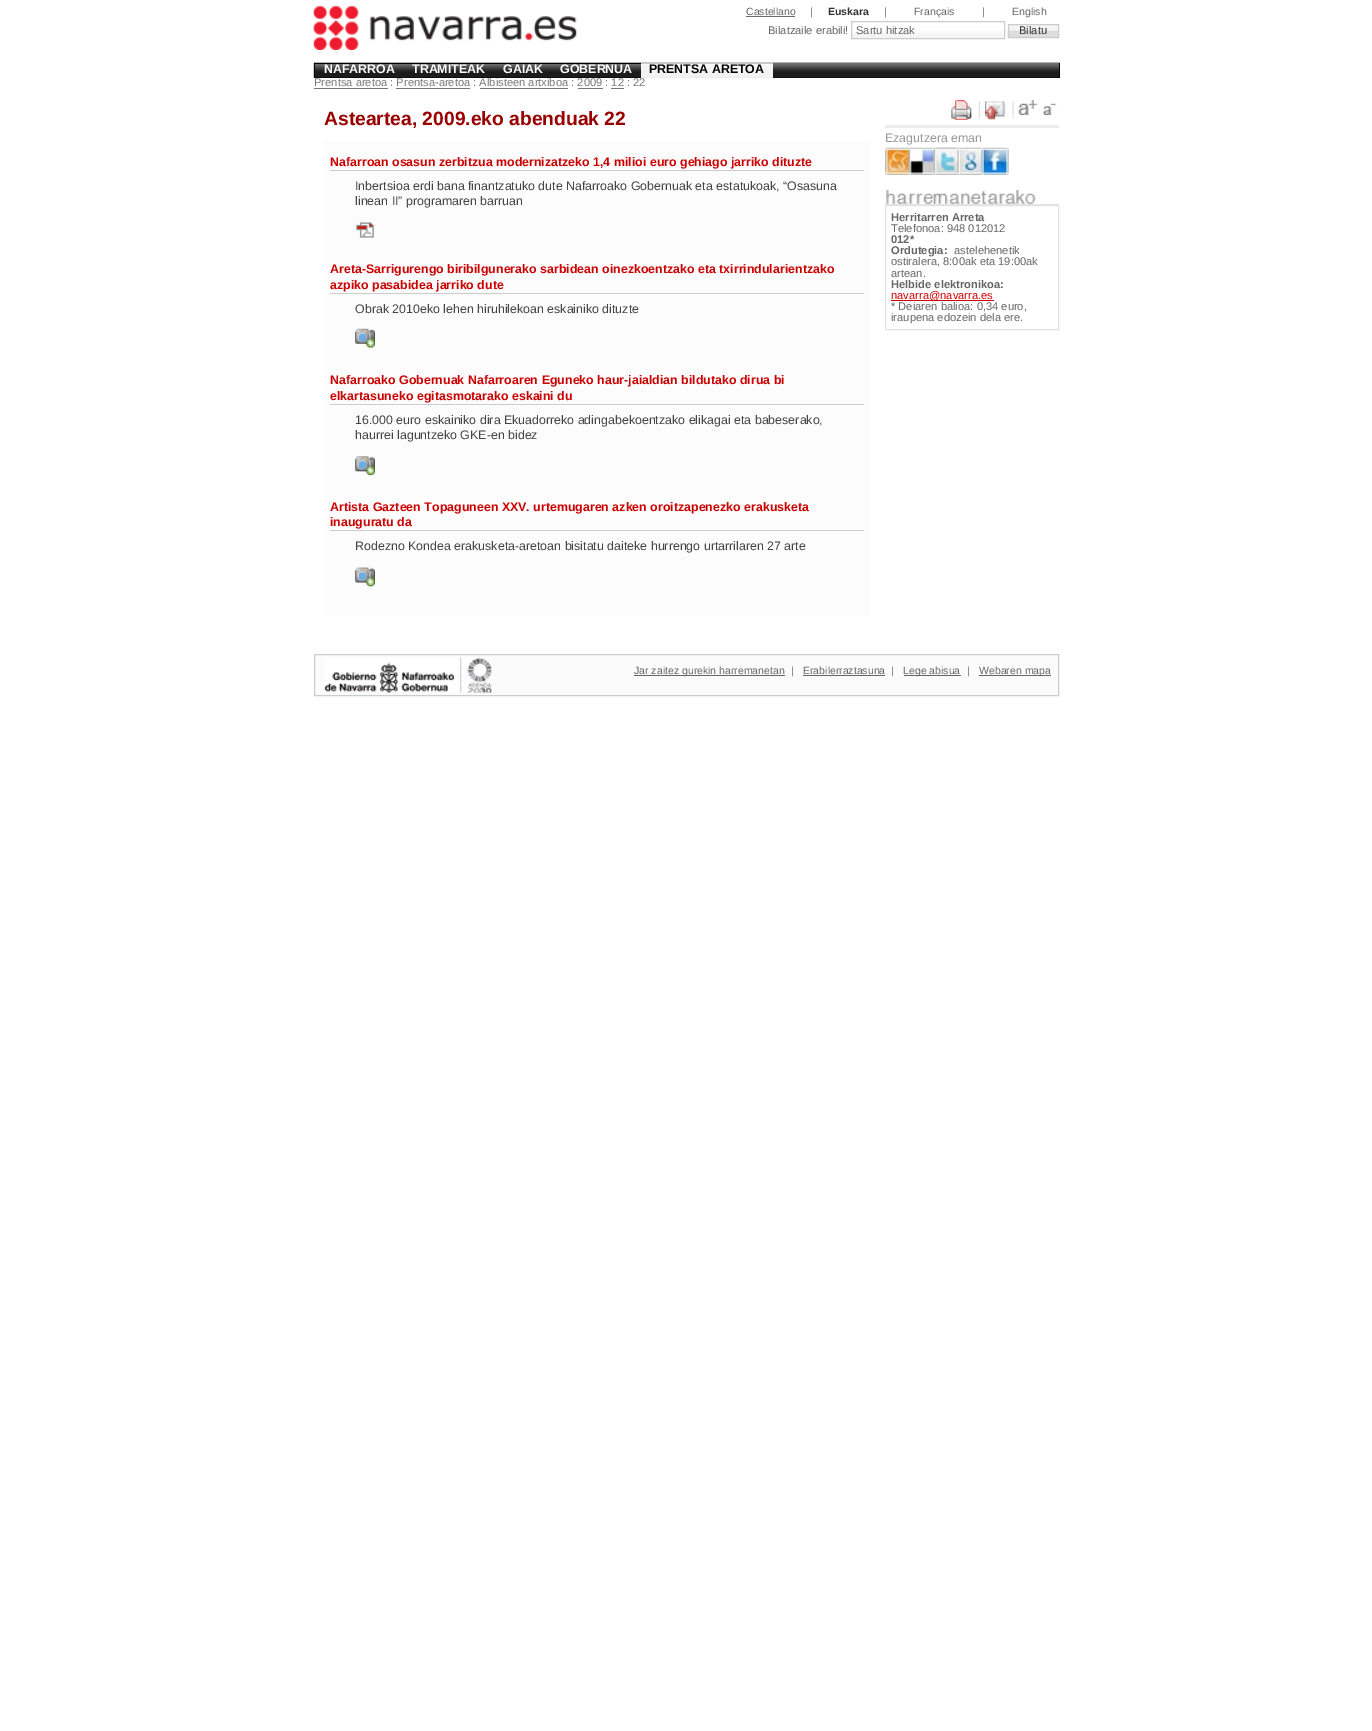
%!PS-Adobe-3.0
%%BoundingBox: 0 0 1372 1731
%%LanguageLevel: 3
%%Pages: 1
%%EndComments
%%BeginProlog
/m { moveto } bind def
/l { lineto } bind def
/h { closepath } bind def
/f { fill } bind def
/S { stroke } bind def
/q { gsave } bind def
/Q { grestore } bind def
/fn { [ exch dup neg 0 0 3 -1 roll 0 0 ] selectfont } def
/tx { moveto show } def
/bx { rectfill } def
/im { 5 dict begin { /h /w /y /x /name } { exch def } forall
  gsave x y translate w h scale
  w h 8 [w 0 0 h 0 0] name (r) file false 3 colorimage grestore end } def
%%EndProlog
%%BeginSetup
<< /PageSize [1372 1731] >> setpagedevice
%%EndSetup
%%Page: 1 1
0 1731 translate 1 -1 scale
4 setmiterlimit
1 setgray
0 0 1372 1731 bx
(image0.raw) 313 6 264 44 im
/LiberationSans-Regular 10.5 fn
0.4 setgray
(Castellano) 746 15 tx
0.416 setgray
746 16 49 1 bx
0.4 setgray
(|) 810 15 tx
/LiberationSans-Bold 10.5 fn
0.2 setgray
(Euskara) 828 15 tx
/LiberationSans-Regular 10.5 fn
0.4 setgray
(|) 884 15 tx
(Français) 914 15 tx
(|) 982 15 tx
(English) 1012 15 tx
/LiberationSans-Regular 11.15 fn
(Bilatzaile erabili!) 768 34 tx
(image1.raw) 852 31 152 7 im
0.8 setgray
851.5 21.5 153 17 rectstroke
0.4 setgray
(Sartu hitzak) 856 34 tx
(image2.raw) 1007 24 51 14 im
0.8 setgray
1008.5 24.5 50 13 rectstroke
0.2 setgray
(Bilatu) 1019 34 tx
0.467 setgray
(Prentsa aretoa : Prentsa-aretoa : Albisteen artxiboa : 2009 : 12 : 22) 314 86 tx
0 setgray
315 77 744 1 bx
(image3.raw) 313 62 747 16 im
1059 63 1 15 bx
314 63 327 1 bx
314 63 1 15 bx
/LiberationSans-Bold 12.4 fn
1 setgray
(NAFARROA) 324 73 tx
(TRAMITEAK) 412 73 tx
(GAIAK) 503 73 tx
(GOBERNUA) 560 73 tx
0.925 setgray
641 64 132 14 bx
(image4.raw) 641 62 132 15 im
0.8 setgray
641 63 132 1 bx
0 setgray
(PRENTSA ARETOA) 649 73 tx
0.467 setgray
314 88 74 1 bx
396 88 74 1 bx
480 88 88 1 bx
578 88 25 1 bx
611 88 13 1 bx
/LiberationSans-Bold 19.25 fn
0.6 0 0 setrgbcolor
(Asteartea, 2009.eko abenduak 22) 324 125 tx
0.988 setgray
324 141 546 475 bx
0.8 setgray
330 170 534 1 bx
/LiberationSans-Bold 12.4 fn
0.8 0 0 setrgbcolor
(Nafarroan osasun zerbitzua modernizatzeko 1,4 milioi euro gehiago jarriko dituzte) 330 166 tx
/LiberationSans-Regular 12.4 fn
0.267 setgray
(Inbertsioa erdi bana finantzatuko dute Nafarroako Gobernuak eta estatukoak, “Osasuna) 355 190 tx
(linean II” programaren barruan) 355 205 tx
(image5.raw) 356 222 18 16 im
0.8 setgray
330 293 534 1 bx
/LiberationSans-Bold 12.4 fn
0.8 0 0 setrgbcolor
(Areta-Sarrigurengo biribilgunerako sarbidean oinezkoentzako eta txirrindularientzako) 330 273 tx
(azpiko pasabidea jarriko dute) 330 289 tx
/LiberationSans-Regular 12.4 fn
0.267 setgray
(Obrak 2010eko lehen hiruhilekoan eskainiko dituzte) 355 313 tx
(image6.raw) 355 328 20 20 im
0.8 setgray
330 404 534 1 bx
/LiberationSans-Bold 12.4 fn
0.8 0 0 setrgbcolor
(Nafarroako Gobernuak Nafarroaren Eguneko haur-jaialdian bildutako dirua bi) 330 384 tx
(elkartasuneko egitasmotarako eskaini du) 330 400 tx
/LiberationSans-Regular 12.4 fn
0.267 setgray
(16.000 euro eskainiko dira Ekuadorreko adingabekoentzako elikagai eta babeserako,) 355 424 tx
(haurrei laguntzeko GKE-en bidez) 355 439 tx
(image7.raw) 355 456 20 19 im
0.8 setgray
330 530 534 1 bx
/LiberationSans-Bold 12.4 fn
0.8 0 0 setrgbcolor
(Artista Gazteen Topaguneen XXV. urtemugaren azken oroitzapenezko erakusketa) 330 511 tx
(inauguratu da) 330 526 tx
/LiberationSans-Regular 12.4 fn
0.267 setgray
(Rodezno Kondea erakusketa-aretoan bisitatu daiteke hurrengo urtarrilaren 27 arte) 355 550 tx
(image8.raw) 355 567 20 20 im
(image9.raw) 951 100 29 20 im
(image10.raw) 985 101 29 19 im
(image11.raw) 1018 100 20 15 im
(image12.raw) 1042 103 15 12 im
0.925 setgray
885 125 174 3 bx
0.604 setgray
(Ezagutzera eman) 885 142 tx
(image13.raw) 885 147 28 28 im
(image14.raw) 908 147 29 28 im
(image15.raw) 933 147 29 28 im
(image16.raw) 933 147 29 28 im
(image17.raw) 957 147 28 28 im
(image18.raw) 981 147 28 28 im
(image19.raw) 886 190 150 14 im
0.89 setgray
885 204 174 1 bx
885.5 205.5 173 124 rectstroke
/LiberationSans-Bold 11.15 fn
0.4 setgray
(Herritarren Arreta) 891 221 tx
/LiberationSans-Regular 11.15 fn
(Telefonoa: 948 012012) 891 232 tx
/LiberationSans-Bold 11.15 fn
(012*) 891 243 tx
(Ordutegia:) 891 254 tx
/LiberationSans-Regular 11.15 fn
(astelehenetik) 954 254 tx
(ostiralera, 8:00ak eta 19:00ak) 891 265 tx
(artean.) 891 277 tx
/LiberationSans-Bold 11.15 fn
(Helbide elektronikoa:) 891 288 tx
0.8 0 0 setrgbcolor
891 300 103 1 bx
/LiberationSans-Regular 11.15 fn
(navarra@navarra.es) 891 299 tx
0.4 setgray
(* Deiaren balioa: 0,34 euro,) 891 310 tx
(iraupena edozein dela ere.) 891 321 tx
0.984 setgray
314.5 654.5 m 1058.5 654.5 l 1058.5 695.5 l 314.5 695.5 l h q f Q
0.8 setgray
S
(image20.raw) 324 657 168 36 im
0.4 setgray
634 675 151 1 bx
/LiberationSans-Regular 10.5 fn
(Jar zaitez gurekin harremanetan) 634 674 tx
791 674 m 3 0 (|) ashow
(Erabilerraztasuna) 803 674 tx
803 675 82 1 bx
891 674 m 3 0 (|) ashow
904 675 57 1 bx
(Lege abisua) 903 674 tx
967 674 m 3 0 (|) ashow
979 675 72 1 bx
(Webaren mapa) 979 674 tx
showpage
%%EOF
